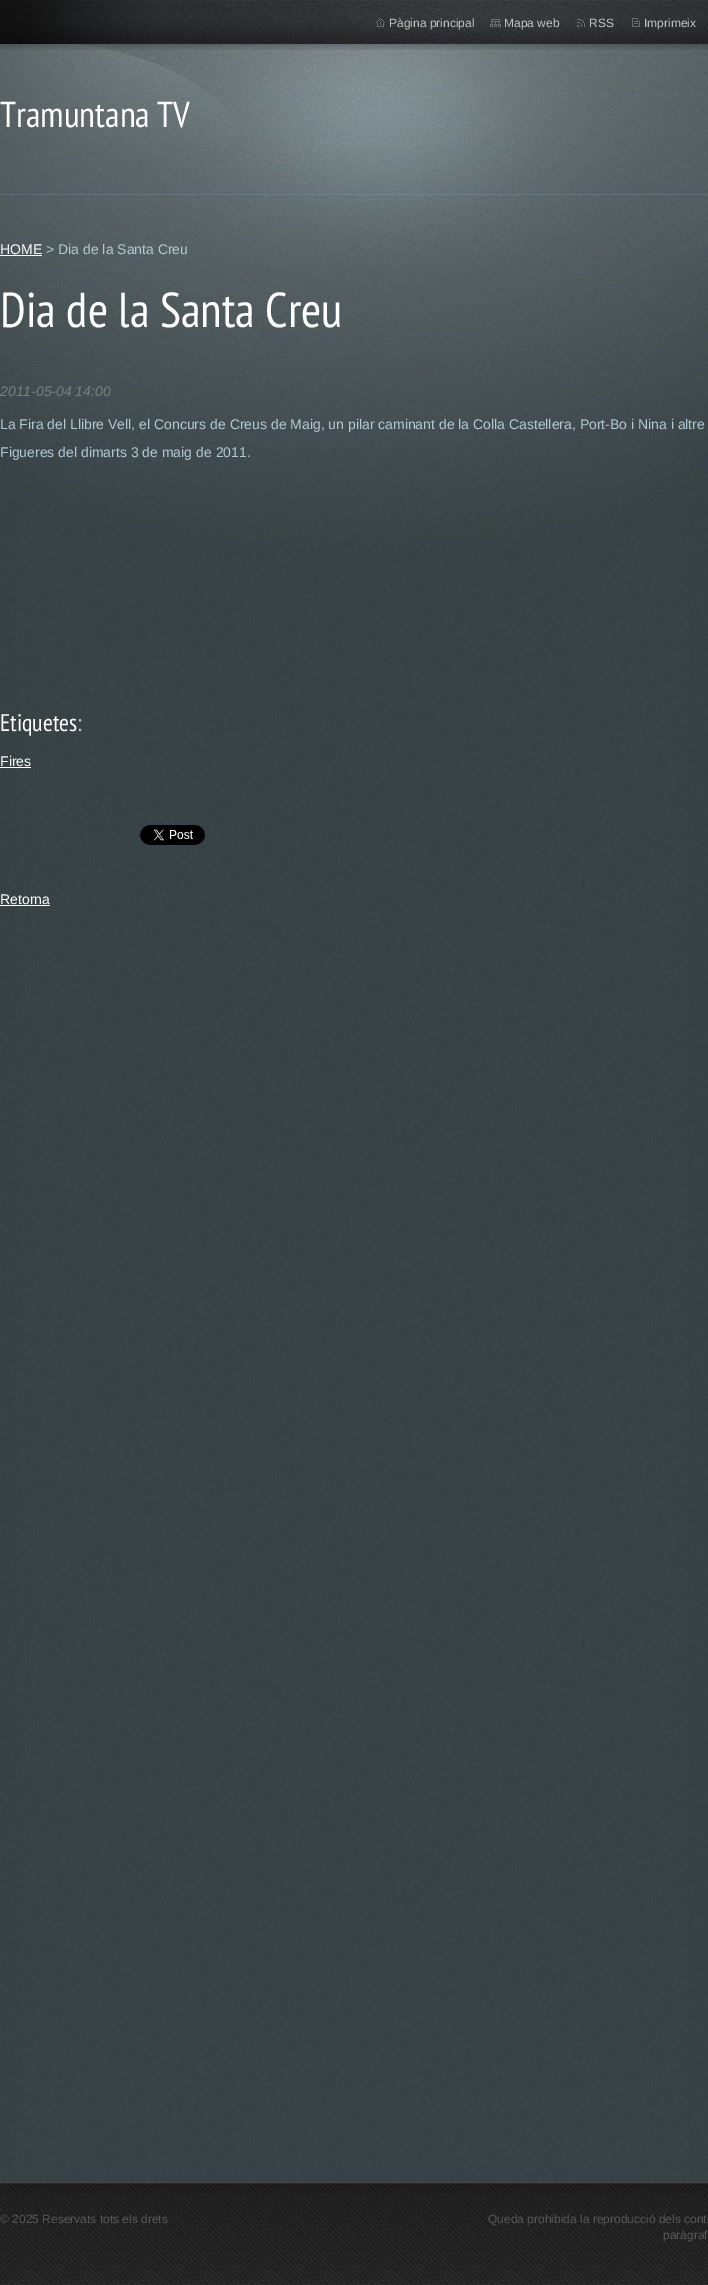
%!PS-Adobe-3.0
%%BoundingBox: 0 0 708 2285
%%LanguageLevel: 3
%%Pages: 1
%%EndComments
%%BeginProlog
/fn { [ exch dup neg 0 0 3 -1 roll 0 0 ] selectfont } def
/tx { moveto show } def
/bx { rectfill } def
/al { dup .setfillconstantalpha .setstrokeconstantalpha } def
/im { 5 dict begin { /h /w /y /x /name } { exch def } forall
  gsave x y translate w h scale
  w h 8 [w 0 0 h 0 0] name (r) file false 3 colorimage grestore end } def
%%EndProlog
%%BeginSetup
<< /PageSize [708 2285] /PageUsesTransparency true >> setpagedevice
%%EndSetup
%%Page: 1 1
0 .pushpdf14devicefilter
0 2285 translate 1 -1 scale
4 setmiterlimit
1 setgray
0 0 708 2285 bx
(image0.raw) 0 600 708 1582 im
(image1.raw) 0 44 708 556 im
0.26 al
0.514 0.62 0.725 setrgbcolor
0 194 708 1 bx
1 al
(image2.raw) 0 0 708 50 im
(image3.raw) 2 0 706 44 im
(image4.raw) 376 18 9 9 im
/LiberationSans-Regular 12 fn
0.765 setgray
(Pàgina principal) 389 27 tx
(image5.raw) 490 19 11 8 im
(Mapa web) 504 27 tx
(image6.raw) 577 19 8 8 im
(RSS) 589 27 tx
(image7.raw) 632 18 8 9 im
(Imprimeix) 644 27 tx
/PTSansNarrow-Regular 36 fn
1 setgray
(Tramuntana TV) 0 127 tx
/LiberationSans-Regular 14 fn
(HOME) 0 254 tx
0 255 42 1 bx
0.702 0.788 0.827 setrgbcolor
(> Dia de la Santa Creu) 46 254 tx
/PTSansNarrow-Regular 49 fn
1 setgray
(Dia de la Santa Creu) 0 327 tx
/LiberationSans-Italic 14 fn
0.459 0.502 0.522 setrgbcolor
(2011-05-04 14:00) 0 396 tx
/LiberationSans-Regular 14 fn
0.702 0.788 0.827 setrgbcolor
(La Fira del Llibre Vell, el Concurs de Creus de Maig, un pilar caminant de la Colla Castellera, Port-Bo i Nina i altre) 0 429 tx
(Figueres del dimarts 3 de maig de 2011.) 0 457 tx
/PTSansNarrow-Regular 24 fn
1 setgray
(Etiquetes) 0 731 tx
0.702 0.788 0.827 setrgbcolor
(:) 77 731 tx
/LiberationSans-Regular 14 fn
1 setgray
(Fires) 0 766 tx
0 767 31 1 bx
(image8.raw) 140 825 65 20 im
(Retorna) 0 904 tx
0 905 50 1 bx
0.165 setgray
0 2284 708 1 bx
(image9.raw) 0 2182 708 102 im
/LiberationSans-Regular 12 fn
0.345 setgray
(© 2025 Reservats tots els drets) 0 2223 tx
(Queda prohibida la reproducció dels conti) 488 2223 tx
(paràgraf) 663 2239 tx
.poppdf14devicefilter showpage
%%EOF
